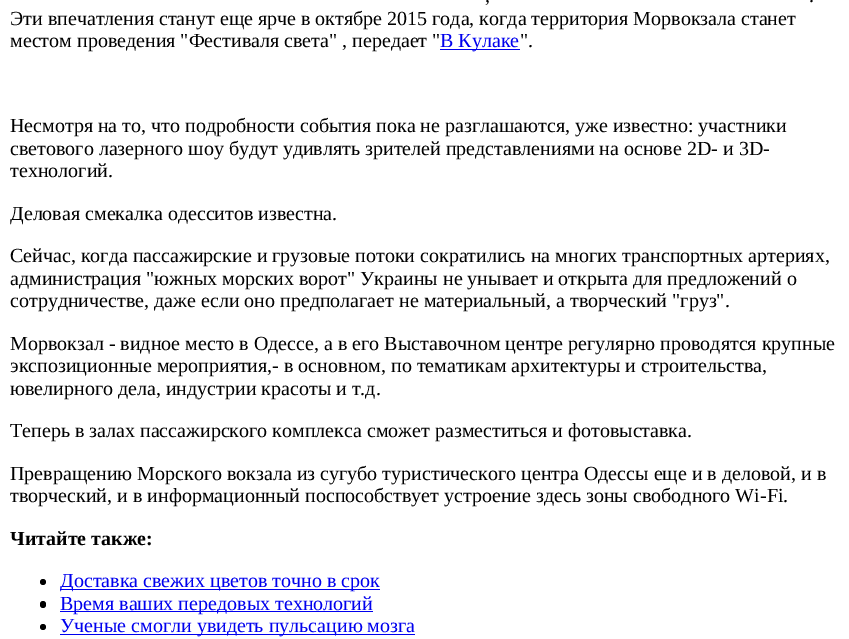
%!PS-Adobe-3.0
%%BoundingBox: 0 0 849 639
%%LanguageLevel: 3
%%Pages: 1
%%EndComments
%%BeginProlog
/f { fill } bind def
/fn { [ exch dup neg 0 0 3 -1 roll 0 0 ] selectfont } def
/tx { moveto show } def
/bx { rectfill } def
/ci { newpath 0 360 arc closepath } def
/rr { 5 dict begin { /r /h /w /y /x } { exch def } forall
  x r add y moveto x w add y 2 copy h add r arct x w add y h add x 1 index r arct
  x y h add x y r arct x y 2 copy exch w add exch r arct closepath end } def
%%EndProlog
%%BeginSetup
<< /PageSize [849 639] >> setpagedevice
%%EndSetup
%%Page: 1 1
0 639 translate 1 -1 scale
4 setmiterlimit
1 setgray
0 0 849 639 bx
/LiberationSerif-Regular 20 fn
0 setgray
(,) 485 2 tx
(.) 809 2 tx
(Эти впечатления станут еще ярче в октябре 2015 года, когда территория Морвокзала станет) 10 25 tx
(местом проведения "Фестиваля света" , передает ") 10 47 tx
0 0 0.933 setrgbcolor
440 49 80 1 bx
(В Кулаке) 440 47 tx
0 setgray
(".) 520 47 tx
(Несмотря на то, что подробности события пока не разглашаются, уже известно: участники) 10 132 tx
(светового лазерного шоу будут удивлять зрителей представлениями на основе 2D- и 3D-) 10 155 tx
(технологий.) 10 177 tx
(Деловая смекалка одесситов известна.) 10 220 tx
(Сейчас, когда пассажирские и грузовые потоки сократились на многих транспортных артериях,) 10 262 tx
(администрация "южных морских ворот" Украины не унывает и открыта для предложений о) 10 285 tx
(сотрудничестве, даже если оно предполагает не материальный, а творческий "груз".) 10 307 tx
(Морвокзал - видное место в Одессе, а в его Выставочном центре регулярно проводятся крупные) 10 350 tx
(экспозиционные мероприятия,- в основном, по тематикам архитектуры и строительства,) 10 372 tx
(ювелирного дела, индустрии красоты и т.д.) 10 395 tx
(Теперь в залах пассажирского комплекса сможет разместиться и фотовыставка.) 10 437 tx
(Превращению Морского вокзала из сугубо туристического центра Одессы еще и в деловой, и в) 10 480 tx
(творческий, и в информационный поспособствует устроение здесь зоны свободного Wi-Fi.) 10 502 tx
/LiberationSerif-Bold 20 fn
(Читайте также:) 10 545 tx
43 582 3 ci f
0 0 0.933 setrgbcolor
60 589 320 1 bx
/LiberationSerif-Regular 20 fn
(Доставка свежих цветов точно в срок) 60 587 tx
0 setgray
40 601 6 7 3 rr f
0 0 0.933 setrgbcolor
60 611 313 1 bx
(Время ваших передовых технологий) 60 610 tx
0 setgray
43 627 3 ci f
0 0 0.933 setrgbcolor
60 634 355 1 bx
(Ученые смогли увидеть пульсацию мозга) 60 632 tx
showpage
%%EOF
